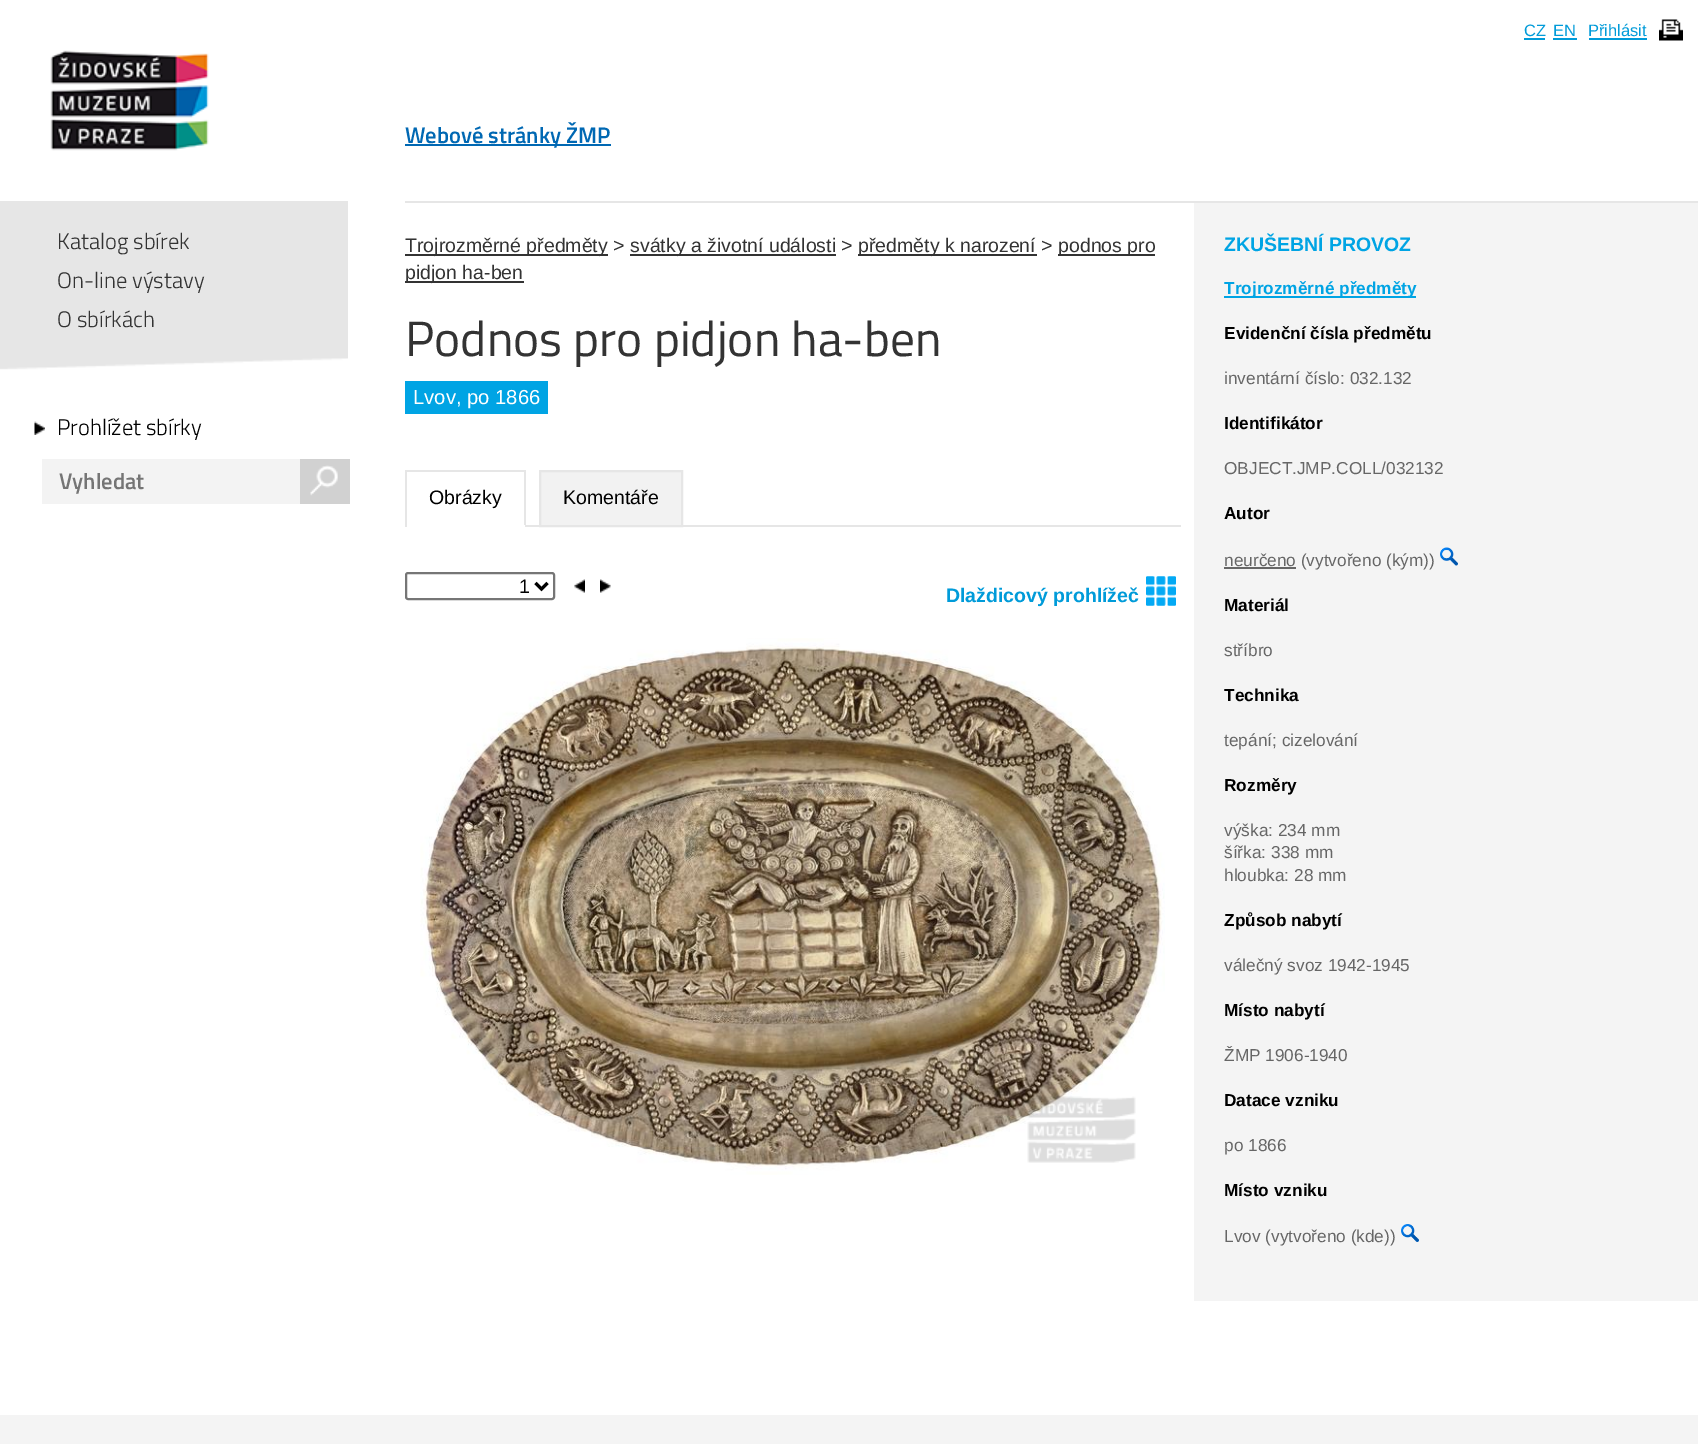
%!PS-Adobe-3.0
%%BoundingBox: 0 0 1698 1444
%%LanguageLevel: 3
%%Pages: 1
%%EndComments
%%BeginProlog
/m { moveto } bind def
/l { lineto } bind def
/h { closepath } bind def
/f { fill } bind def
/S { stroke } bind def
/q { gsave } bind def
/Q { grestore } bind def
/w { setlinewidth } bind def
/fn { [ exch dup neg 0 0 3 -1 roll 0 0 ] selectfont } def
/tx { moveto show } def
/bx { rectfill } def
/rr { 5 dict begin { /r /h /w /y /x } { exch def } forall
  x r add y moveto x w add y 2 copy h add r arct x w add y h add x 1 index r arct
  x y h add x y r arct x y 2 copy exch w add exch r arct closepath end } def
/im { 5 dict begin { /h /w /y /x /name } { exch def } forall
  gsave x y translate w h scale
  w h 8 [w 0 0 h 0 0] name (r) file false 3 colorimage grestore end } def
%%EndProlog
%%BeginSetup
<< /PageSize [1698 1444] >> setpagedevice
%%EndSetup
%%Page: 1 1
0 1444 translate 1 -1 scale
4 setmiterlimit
1 setgray
0 0 1698 1444 bx
/LiberationSans-Regular 16.5 fn
0 0.608 0.851 setrgbcolor
(CZ) 1524 36 tx
1524 38 21 2 bx
(EN) 1553 36 tx
1553 38 24 2 bx
(Přihlásit) 1588 36 tx
1589 38 58 2 bx
(image0.raw) 1659 19 24 22 im
(image1.raw) 50 50 159 101 im
0 0.408 0.702 setrgbcolor
405 144 206 2 bx
/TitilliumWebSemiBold-SemiBold 22.5 fn
(Webové stránky ŽMP) 405 143 tx
0.902 setgray
0 201 348 157 bx
(image2.raw) 0 358 348 14 im
/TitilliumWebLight-Light 22.5 fn
0.2 setgray
(Katalog sbírek) 57 249 tx
(On-line výstavy) 57 288 tx
(O sbírkách) 57 327 tx
(image3.raw) 34 421 11 14 im
0 setgray
(Prohlížet sbírky) 57 435 tx
0.953 setgray
42 459 258 45 bx
/TitilliumWebSemiBold-SemiBold 22.5 fn
0.459 setgray
(Vyhledat) 59 489 tx
0.82 setgray
300 459 50 45 bx
(image4.raw) 310 465 28 31 im
0.902 setgray
405 201 1293 2 bx
0.2 setgray
405 254 203 2 bx
/LiberationSans-Regular 19.5 fn
(Trojrozměrné předměty >) 405 252 tx
630 254 206 2 bx
(svátky a životní události >) 630 252 tx
858 254 179 2 bx
(předměty k narození >) 858 252 tx
1058 254 97 2 bx
(podnos pro) 1058 252 tx
405 281 119 2 bx
(pidjon ha-ben) 405 279 tx
/TitilliumWeb-Regular 49.5 fn
(Podnos pro pidjon ha-ben) 405 356 tx
0 0.643 0.894 setrgbcolor
405 381 143 33 bx
/LiberationSans-Regular 20.25 fn
1 setgray
(Lvov, po 1866) 413 404 tx
0.902 setgray
526 525 655 2 bx
405 470 120 2 bx
524 470 2 57 bx
1 setgray
524 525 1 2 bx
0.902 setgray
405 470 2 57 bx
/LiberationSans-Regular 19.5 fn
0 setgray
(Obrázky) 429 504 tx
0.949 setgray
540 471 m 682 471 l 682 526 l 540 526 l h q f Q
0.902 setgray
2 w
S
0 setgray
(Komentáře) 563 504 tx
0.463 setgray
406 573 148 26 2 rr S
0 setgray
3 w
535.5 583 m 541.5 589 l 547.5 583 l S
(1) 519 593 tx
(image5.raw) 574 579 11 14 im
(image6.raw) 600 579 11 14 im
/LiberationSans-Bold 19.5 fn
0 0.608 0.851 setrgbcolor
(Dlaždicový prohlížeč) 946 602 tx
(image7.raw) 1146 576 30 30 im
(image8.raw) 420 638 745 537 im
(image9.raw) 1027 1095 109 68 im
0.957 setgray
1194 203 504 1098 bx
0 0.643 0.894 setrgbcolor
(ZKUŠEBNÍ PROVOZ) 1224 251 tx
1224 296 192 2 bx
/LiberationSans-Bold 17.25 fn
(Trojrozměrné předměty) 1224 294 tx
0 setgray
(Evidenční čísla předmětu) 1224 339 tx
/LiberationSans-Regular 17.25 fn
0.4 setgray
(inventární číslo: 032.132) 1224 384 tx
/LiberationSans-Bold 17.25 fn
0 setgray
(Identifikátor) 1224 429 tx
/LiberationSans-Regular 17.25 fn
0.4 setgray
(OBJECT.JMP.COLL/032132) 1224 474 tx
/LiberationSans-Bold 17.25 fn
0 setgray
(Autor) 1224 519 tx
0.4 setgray
1224 567 72 2 bx
/LiberationSans-Regular 17.25 fn
(neurčeno \(vytvořeno \(kým\)\)) 1224 566 tx
(image10.raw) 1440 547 18 19 im
/LiberationSans-Bold 17.25 fn
0 setgray
(Materiál) 1224 611 tx
/LiberationSans-Regular 17.25 fn
0.4 setgray
(stříbro) 1224 656 tx
/LiberationSans-Bold 17.25 fn
0 setgray
(Technika) 1224 701 tx
/LiberationSans-Regular 17.25 fn
0.4 setgray
(tepání; cizelování) 1224 746 tx
/LiberationSans-Bold 17.25 fn
0 setgray
(Rozměry) 1224 791 tx
/LiberationSans-Regular 17.25 fn
0.4 setgray
(výška: 234 mm) 1224 836 tx
(šířka: 338 mm) 1224 858 tx
(hloubka: 28 mm) 1224 881 tx
/LiberationSans-Bold 17.25 fn
0 setgray
(Způsob nabytí) 1224 926 tx
/LiberationSans-Regular 17.25 fn
0.4 setgray
(válečný svoz 1942-1945) 1224 971 tx
/LiberationSans-Bold 17.25 fn
0 setgray
(Místo nabytí) 1224 1016 tx
/LiberationSans-Regular 17.25 fn
0.4 setgray
(ŽMP 1906-1940) 1224 1061 tx
/LiberationSans-Bold 17.25 fn
0 setgray
(Datace vzniku) 1224 1106 tx
/LiberationSans-Regular 17.25 fn
0.4 setgray
(po 1866) 1224 1151 tx
/LiberationSans-Bold 17.25 fn
0 setgray
(Místo vzniku) 1224 1196 tx
/LiberationSans-Regular 17.25 fn
0.4 setgray
(Lvov \(vytvořeno \(kde\)\)) 1224 1242 tx
(image11.raw) 1401 1224 18 18 im
0.957 setgray
0 1415 1698 29 bx
showpage
%%EOF
